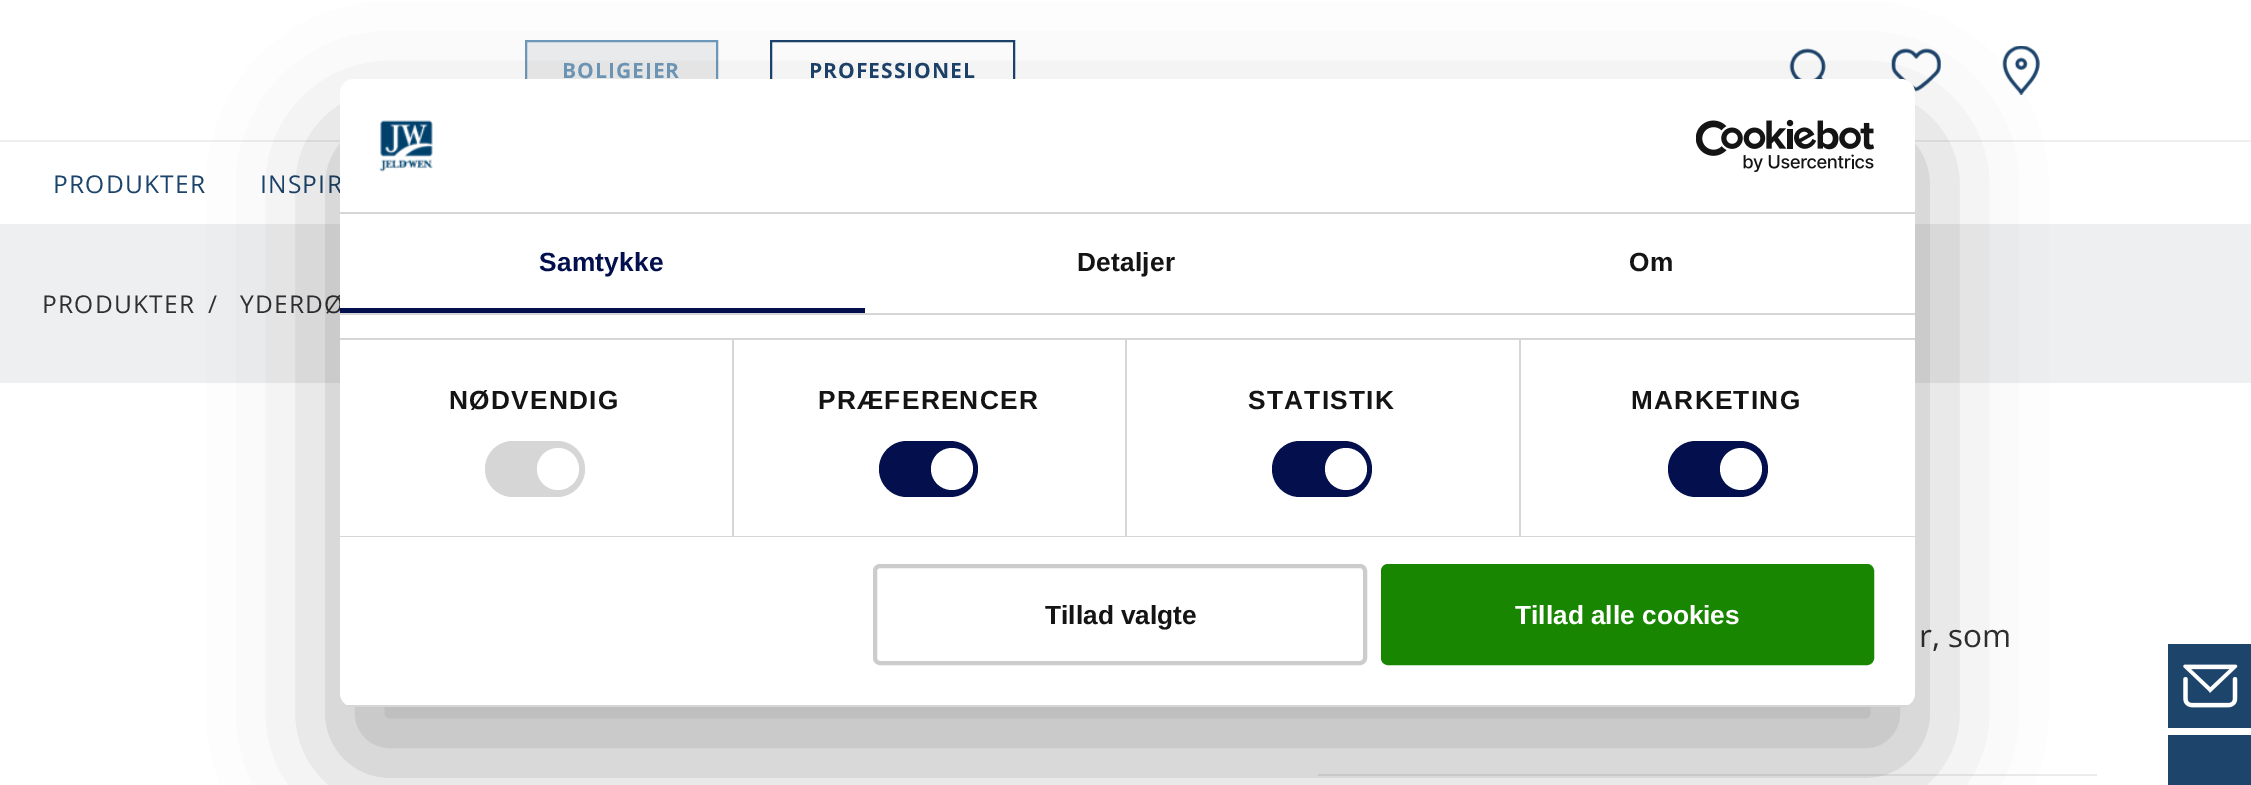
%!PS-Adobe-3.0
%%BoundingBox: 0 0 2251 785
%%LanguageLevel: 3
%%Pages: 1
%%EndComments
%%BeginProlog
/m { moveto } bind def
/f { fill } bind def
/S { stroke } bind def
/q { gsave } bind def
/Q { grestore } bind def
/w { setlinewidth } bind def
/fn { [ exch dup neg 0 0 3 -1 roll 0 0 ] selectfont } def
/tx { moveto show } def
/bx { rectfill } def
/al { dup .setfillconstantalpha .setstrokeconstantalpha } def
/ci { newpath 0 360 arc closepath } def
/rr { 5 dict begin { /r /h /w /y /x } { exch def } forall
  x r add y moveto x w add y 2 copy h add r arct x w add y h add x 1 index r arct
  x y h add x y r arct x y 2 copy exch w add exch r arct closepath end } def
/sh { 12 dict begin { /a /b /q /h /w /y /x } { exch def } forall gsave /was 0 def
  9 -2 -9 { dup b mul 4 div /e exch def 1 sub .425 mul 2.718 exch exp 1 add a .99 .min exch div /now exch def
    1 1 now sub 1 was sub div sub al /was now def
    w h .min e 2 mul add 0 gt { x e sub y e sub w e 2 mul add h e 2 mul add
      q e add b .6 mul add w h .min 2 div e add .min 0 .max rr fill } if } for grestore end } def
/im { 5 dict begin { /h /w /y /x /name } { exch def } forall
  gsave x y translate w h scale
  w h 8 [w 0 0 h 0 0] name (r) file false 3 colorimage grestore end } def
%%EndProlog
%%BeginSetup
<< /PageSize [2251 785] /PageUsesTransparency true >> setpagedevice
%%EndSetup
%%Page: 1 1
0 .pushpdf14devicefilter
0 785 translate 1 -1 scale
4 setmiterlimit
0.933 0.937 0.941 setrgbcolor
0 0 2251 785 bx
1 setgray
0 0 2251 140 bx
0.933 0.937 0.941 setrgbcolor
527 42 189 37 bx
0.435 0.604 0.733 setrgbcolor
2 w
526 41 191 58 rectstroke
/OpenSans-Bold 21 fn
562 78 m 1 0 (BOLIGEJER) ashow
0.114 0.267 0.42 setrgbcolor
771 41 243 58 rectstroke
809 78 m 1 0 (PROFESSIONEL) ashow
(image0.raw) 1789 48 37 31 im
(image1.raw) 1891 48 50 44 im
(image2.raw) 2002 46 38 49 im
1 setgray
0 142 2251 82 bx
/OpenSans-Regular 24.5 fn
0.114 0.267 0.42 setrgbcolor
53 193 m 1.25 0 (PRODUKTER) ashow
260 193 m 1.25 0 (INSPIR) ashow
0.188 0.188 0.2 setrgbcolor
42 313 m 1.25 0 (PRODUKTER) ashow
208 313 m 1.25 0 (/) ashow
240 313 m 1.25 0 (YDERDØ) ashow
1 setgray
0 383 2251 402 bx
/OpenSans-Regular 31.5 fn
0.188 0.188 0.2 setrgbcolor
(r, som) 1919 647 tx
0.922 0.922 0.925 setrgbcolor
1318 774 779 2 bx
0.114 0.267 0.42 setrgbcolor
2168 644 83 84 bx
(image3.raw) 2183 664 55 44 im
2168 735 83 50 bx
0 setgray
340 135 1575 628 14 59.5 0.3 sh
1 setgray
340 79 1575 628 14 rr f
0.839 setgray
340 212 1575 2 bx
(image4.raw) 379 120 54 52 im
(image5.raw) 1696 119 178 53 im
340 313 1575 2 bx
0.012 0.063 0.302 setrgbcolor
340 308 525 5 bx
/LiberationSans-Bold 26.25 fn
539 271 m 0.25 0 (Samtykke) ashow
0.078 setgray
1077 271 m 0.25 0 (Detaljer) ashow
1629 271 m 0.25 0 (Om) ashow
0.839 setgray
340 338 1575 2 bx
340 536 1575 1 bx
732 340 2 196 bx
0.078 setgray
449 409 m 1.25 0 (NØDVENDIG) ashow
0.839 setgray
485 441 100 56 28 rr f
1 setgray
558 469 21 ci f
0.839 setgray
1125 340 2 196 bx
0.078 setgray
818 409 m 1.25 0 (PRÆFERENCER) ashow
0.012 0.063 0.302 setrgbcolor
879 441 99 56 28 rr f
1 setgray
952 469 21 ci f
0.839 setgray
1519 340 2 196 bx
0.078 setgray
1248 409 m 1.25 0 (STATISTIK) ashow
0.012 0.063 0.302 setrgbcolor
1272 441 100 56 28 rr f
1 setgray
1346 469 21 ci f
0.078 setgray
1631 409 m 1.25 0 (MARKETING) ashow
0.012 0.063 0.302 setrgbcolor
1668 441 100 56 28 rr f
1 setgray
1741 469 21 ci f
q
340 79 1575 628 14 rr clip newpath
0.839 setgray
340 705 1575 2 bx
Q
0.8 setgray
4 w
875 566 490 97 5 rr S
0.078 setgray
(Tillad valgte) 1045 624 tx
0.094 0.525 0 setrgbcolor
1383 566 489 97 5 rr q f Q
S
1 setgray
(Tillad alle cookies) 1515 624 tx
.poppdf14devicefilter showpage
%%EOF
